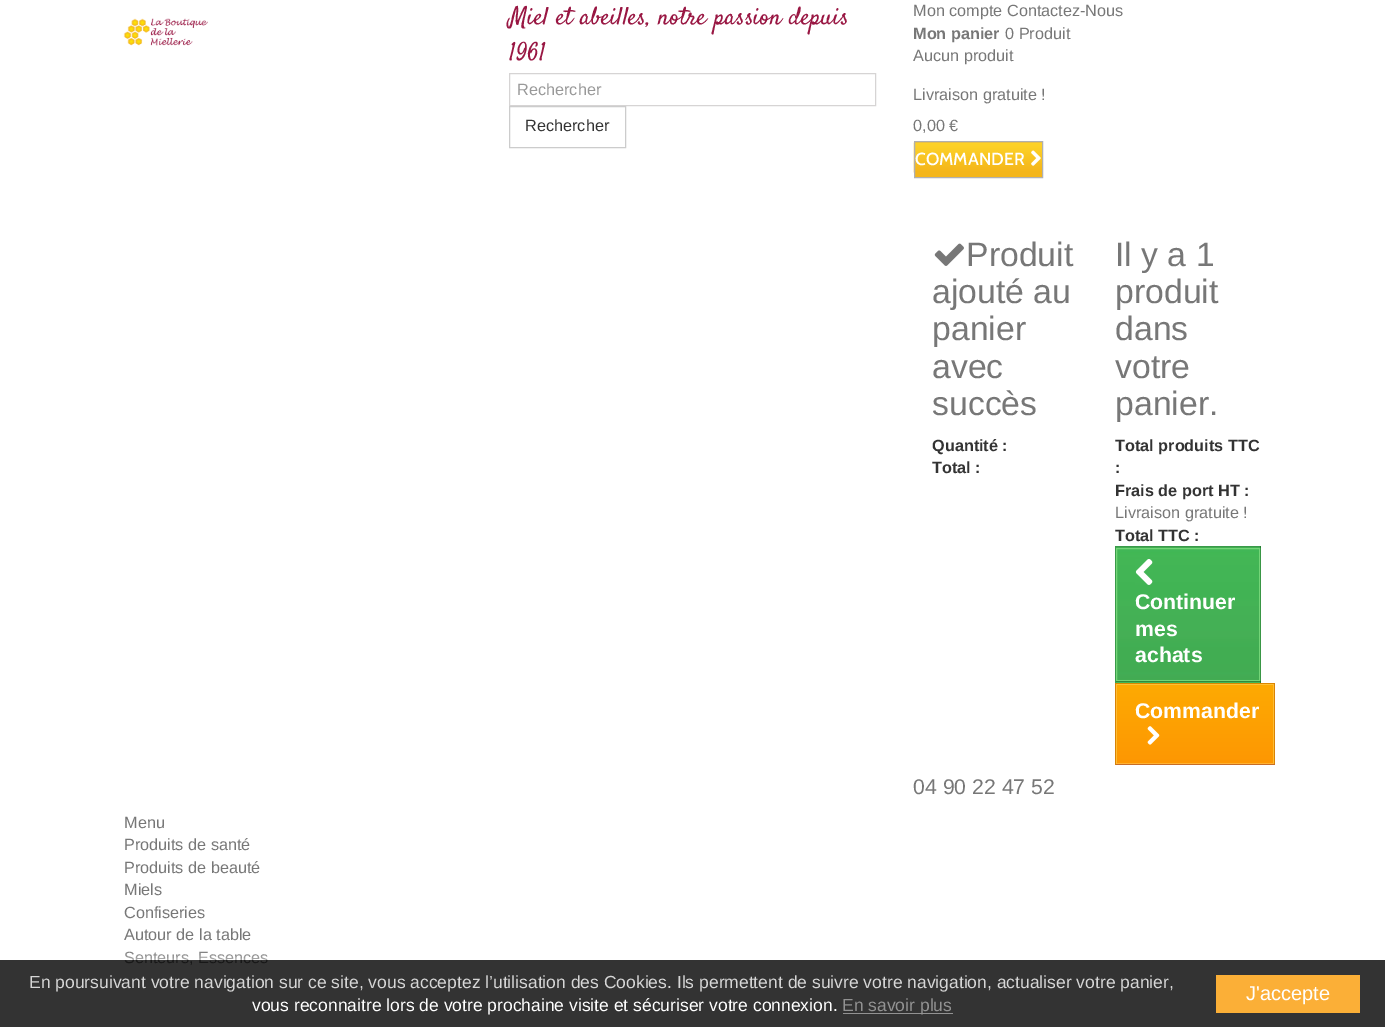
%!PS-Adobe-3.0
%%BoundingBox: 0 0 1385 1027
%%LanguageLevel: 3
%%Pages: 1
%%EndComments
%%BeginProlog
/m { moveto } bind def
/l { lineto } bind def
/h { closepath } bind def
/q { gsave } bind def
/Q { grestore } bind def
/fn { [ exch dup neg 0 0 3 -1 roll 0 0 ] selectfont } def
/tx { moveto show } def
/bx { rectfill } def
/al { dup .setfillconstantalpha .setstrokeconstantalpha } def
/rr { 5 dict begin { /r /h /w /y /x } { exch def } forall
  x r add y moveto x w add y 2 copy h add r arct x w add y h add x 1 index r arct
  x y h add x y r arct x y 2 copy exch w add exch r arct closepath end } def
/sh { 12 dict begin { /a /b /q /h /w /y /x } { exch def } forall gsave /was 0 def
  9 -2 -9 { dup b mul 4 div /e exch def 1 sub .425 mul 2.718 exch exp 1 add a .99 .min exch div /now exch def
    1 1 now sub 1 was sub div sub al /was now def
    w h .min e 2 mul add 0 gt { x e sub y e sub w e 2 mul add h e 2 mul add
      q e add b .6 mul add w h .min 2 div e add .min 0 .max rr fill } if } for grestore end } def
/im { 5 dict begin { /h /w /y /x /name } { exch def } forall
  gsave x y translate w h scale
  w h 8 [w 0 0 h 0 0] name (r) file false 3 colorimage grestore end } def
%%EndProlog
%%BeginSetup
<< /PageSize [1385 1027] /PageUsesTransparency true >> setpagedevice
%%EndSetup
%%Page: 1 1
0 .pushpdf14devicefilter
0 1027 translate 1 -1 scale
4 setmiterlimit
1 setgray
0 0 1385 1027 bx
(image0.raw) 123 18 85 28 im
/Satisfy-Regular 25 fn
0.6 0.09 0.263 setrgbcolor
(Miel et abeilles, notre passion depuis) 509 24 tx
(1961) 509 60 tx
0.839 0.831 0.831 setrgbcolor
509.5 73.5 366 32 rectstroke
/LiberationSans-Regular 16.25 fn
0.6 setgray
(Rechercher) 517 95 tx
0.8 setgray
509.5 106.5 116 41 rectstroke
0.2 setgray
(Rechercher) 525 131 tx
0.467 setgray
(Mon compte Contactez-Nous) 913 16 tx
/LiberationSans-Bold 16.25 fn
(Mon panier) 913 39 tx
/LiberationSans-Regular 16.25 fn
(0 Produit) 1005 39 tx
(Aucun produit) 913 61 tx
(Livraison gratuite !) 913 100 tx
(0,00 €) 913 131 tx
0.957 0.714 0.106 setrgbcolor
915 142 127 35 bx
(image1.raw) 913 142 129 31 im
0.69 setgray
914.5 141.5 128 36 rectstroke
/Cabin-Medium 17.5 fn
1 setgray
(COMMANDER) 915 165 tx
(image2.raw) 1031 150 10 16 im
(image3.raw) 934 243 30 23 im
/LiberationSans-Regular 33.75 fn
0.467 setgray
(Produit) 966 266 tx
(ajouté au) 932 303 tx
(panier) 932 340 tx
(avec) 932 378 tx
(succès) 932 415 tx
/LiberationSans-Bold 16.25 fn
0.2 setgray
(Quantité :) 932 451 tx
(Total :) 932 473 tx
/LiberationSans-Regular 33.75 fn
0.467 setgray
(Il y a 1) 1115 266 tx
(produit) 1115 303 tx
(dans) 1115 340 tx
(votre) 1115 378 tx
(panier.) 1115 415 tx
/LiberationSans-Bold 16.25 fn
0.2 setgray
(Total produits TTC) 1115 451 tx
(:) 1115 473 tx
(Frais de port HT :) 1115 496 tx
/LiberationSans-Regular 16.25 fn
0.467 setgray
(Livraison gratuite !) 1115 518 tx
/LiberationSans-Bold 16.25 fn
0.2 setgray
(Total TTC :) 1115 541 tx
q 1115 547 m 1261 547 l 1261 548 l 1115 548 l h clip newpath
<< /ShadingType 2 /ColorSpace /DeviceRGB /Coords [1188 414 1188 548] /Extend [true true] /Function << /FunctionType 3 /Domain [0 1] /Functions [<< /FunctionType 2 /Domain [0 1] /C0 [0.263 0.718 0.329] /C1 [0.255 0.718 0.341] /N 1 >> << /FunctionType 2 /Domain [0 1] /C0 [0.255 0.718 0.341] /C1 [0.255 0.722 0.329] /N 1 >> << /FunctionType 2 /Domain [0 1] /C0 [0.255 0.722 0.329] /C1 [0.263 0.718 0.337] /N 1 >> << /FunctionType 2 /Domain [0 1] /C0 [0.263 0.718 0.337] /C1 [0.255 0.702 0.329] /N 1 >> << /FunctionType 2 /Domain [0 1] /C0 [0.255 0.702 0.329] /C1 [0.267 0.702 0.333] /N 1 >> << /FunctionType 2 /Domain [0 1] /C0 [0.267 0.702 0.333] /C1 [0.271 0.686 0.333] /N 1 >> << /FunctionType 2 /Domain [0 1] /C0 [0.271 0.686 0.333] /C1 [0.255 0.682 0.325] /N 1 >> << /FunctionType 2 /Domain [0 1] /C0 [0.255 0.682 0.325] /C1 [0.259 0.675 0.322] /N 1 >> << /FunctionType 2 /Domain [0 1] /C0 [0.259 0.675 0.322] /C1 [0.255 0.682 0.333] /N 1 >> << /FunctionType 2 /Domain [0 1] /C0 [0.255 0.682 0.333] /C1 [0.263 0.671 0.329] /N 1 >> << /FunctionType 2 /Domain [0 1] /C0 [0.263 0.671 0.329] /C1 [0.259 0.675 0.322] /N 1 >>] /Bounds [0.02 0.04 0.06 0.38 0.4 0.66 0.74 0.91 0.94 0.96] /Encode [0 1 0 1 0 1 0 1 0 1 0 1 0 1 0 1 0 1 0 1 0 1] >> >> shfill Q
q 1117 549 m 1259 549 l 1259 680 l 1117 680 l h clip newpath
<< /ShadingType 2 /ColorSpace /DeviceRGB /Coords [1188 548 1188 681] /Extend [true true] /Function << /FunctionType 3 /Domain [0 1] /Functions [<< /FunctionType 2 /Domain [0 1] /C0 [0.263 0.718 0.329] /C1 [0.255 0.718 0.341] /N 1 >> << /FunctionType 2 /Domain [0 1] /C0 [0.255 0.718 0.341] /C1 [0.255 0.722 0.329] /N 1 >> << /FunctionType 2 /Domain [0 1] /C0 [0.255 0.722 0.329] /C1 [0.263 0.718 0.337] /N 1 >> << /FunctionType 2 /Domain [0 1] /C0 [0.263 0.718 0.337] /C1 [0.255 0.702 0.329] /N 1 >> << /FunctionType 2 /Domain [0 1] /C0 [0.255 0.702 0.329] /C1 [0.267 0.702 0.333] /N 1 >> << /FunctionType 2 /Domain [0 1] /C0 [0.267 0.702 0.333] /C1 [0.271 0.686 0.333] /N 1 >> << /FunctionType 2 /Domain [0 1] /C0 [0.271 0.686 0.333] /C1 [0.255 0.682 0.325] /N 1 >> << /FunctionType 2 /Domain [0 1] /C0 [0.255 0.682 0.325] /C1 [0.259 0.675 0.322] /N 1 >> << /FunctionType 2 /Domain [0 1] /C0 [0.259 0.675 0.322] /C1 [0.255 0.682 0.333] /N 1 >> << /FunctionType 2 /Domain [0 1] /C0 [0.255 0.682 0.333] /C1 [0.263 0.671 0.329] /N 1 >> << /FunctionType 2 /Domain [0 1] /C0 [0.263 0.671 0.329] /C1 [0.259 0.675 0.322] /N 1 >>] /Bounds [0.02 0.04 0.06 0.38 0.4 0.66 0.74 0.91 0.94 0.96] /Encode [0 1 0 1 0 1 0 1 0 1 0 1 0 1 0 1 0 1 0 1 0 1] >> >> shfill Q
q 1115 682 m 1261 682 l 1261 683 l 1115 683 l h clip newpath
<< /ShadingType 2 /ColorSpace /DeviceRGB /Coords [1188 681 1188 815] /Extend [true true] /Function << /FunctionType 3 /Domain [0 1] /Functions [<< /FunctionType 2 /Domain [0 1] /C0 [0.263 0.718 0.329] /C1 [0.255 0.718 0.341] /N 1 >> << /FunctionType 2 /Domain [0 1] /C0 [0.255 0.718 0.341] /C1 [0.255 0.722 0.329] /N 1 >> << /FunctionType 2 /Domain [0 1] /C0 [0.255 0.722 0.329] /C1 [0.263 0.718 0.337] /N 1 >> << /FunctionType 2 /Domain [0 1] /C0 [0.263 0.718 0.337] /C1 [0.255 0.702 0.329] /N 1 >> << /FunctionType 2 /Domain [0 1] /C0 [0.255 0.702 0.329] /C1 [0.267 0.702 0.333] /N 1 >> << /FunctionType 2 /Domain [0 1] /C0 [0.267 0.702 0.333] /C1 [0.271 0.686 0.333] /N 1 >> << /FunctionType 2 /Domain [0 1] /C0 [0.271 0.686 0.333] /C1 [0.255 0.682 0.325] /N 1 >> << /FunctionType 2 /Domain [0 1] /C0 [0.255 0.682 0.325] /C1 [0.259 0.675 0.322] /N 1 >> << /FunctionType 2 /Domain [0 1] /C0 [0.259 0.675 0.322] /C1 [0.255 0.682 0.333] /N 1 >> << /FunctionType 2 /Domain [0 1] /C0 [0.255 0.682 0.333] /C1 [0.263 0.671 0.329] /N 1 >> << /FunctionType 2 /Domain [0 1] /C0 [0.263 0.671 0.329] /C1 [0.259 0.675 0.322] /N 1 >>] /Bounds [0.02 0.04 0.06 0.38 0.4 0.66 0.74 0.91 0.94 0.96] /Encode [0 1 0 1 0 1 0 1 0 1 0 1 0 1 0 1 0 1 0 1 0 1] >> >> shfill Q
0.224 0.604 0.286 setrgbcolor
1115 546 146 1 bx
0.141 0.498 0.196 setrgbcolor
1260 546 1 137 bx
0.102 0.427 0.153 setrgbcolor
1115 681 146 1 bx
0.224 0.604 0.286 setrgbcolor
1115 546 1 137 bx
0.455 0.835 0.471 setrgbcolor
1116.5 548.5 143 132 rectstroke
(image4.raw) 1135 559 18 26 im
/LiberationSans-Bold 21.25 fn
1 setgray
(Continuer) 1135 609 tx
(mes) 1135 636 tx
(achats) 1135 662 tx
q 1117 685 m 1273 685 l 1273 763 l 1117 763 l h clip newpath
<< /ShadingType 2 /ColorSpace /DeviceRGB /Coords [1195 684 1195 764] /Extend [true true] /Function << /FunctionType 2 /Domain [0 1] /C0 [0.992 0.667 0.008] /C1 [0.996 0.592 0.008] /N 1 >> >> shfill Q
0.859 0.525 0 setrgbcolor
1115 683 160 1 bx
0.851 0.514 0.02 setrgbcolor
1274 683 1 82 bx
0.784 0.427 0.149 setrgbcolor
1115 764 160 1 bx
0.851 0.514 0.02 setrgbcolor
1115 683 1 82 bx
0.996 0.757 0.2 setrgbcolor
1116 684 158 1 bx
0.996 0.737 0.2 setrgbcolor
1273 684 1 80 bx
0.996 0.698 0.2 setrgbcolor
1116 763 158 1 bx
0.996 0.737 0.2 setrgbcolor
1116 684 1 80 bx
1 setgray
(Commander) 1135 718 tx
(image5.raw) 1147 726 13 19 im
/LiberationSans-Regular 21.25 fn
0.467 setgray
(04 90 22 47 52) 913 794 tx
/LiberationSans-Regular 16.25 fn
(Menu) 124 828 tx
(Produits de santé) 124 850 tx
(Produits de beauté) 124 873 tx
(Miels) 124 895 tx
(Confiseries) 124 918 tx
(Autour de la table) 124 940 tx
(Senteurs, Essences) 124 963 tx
q
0 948 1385 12 rectclip
1 setgray
0 960 1385 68 0 6 0.8 sh
Q
0.8 al
0 setgray
0 960 1385 67 bx
/LiberationSans-Regular 17.5 fn
1 al
0.839 setgray
(En poursuivant votre navigation sur ce site, vous acceptez l’utilisation des Cookies. Ils permettent de suivre votre navigation, actualiser votre panier,) 29 988 tx
1 setgray
(vous reconnaitre lors de votre prochaine visite et sécuriser votre connexion.) 252 1011 tx
0.573 setgray
843 1013 110 1 bx
(En savoir plus) 842 1011 tx
0.984 0.686 0.216 setrgbcolor
1216 975 144 38 bx
/LiberationSans-Regular 20 fn
1 setgray
(J'accepte) 1246 1000 tx
.poppdf14devicefilter showpage
%%EOF
